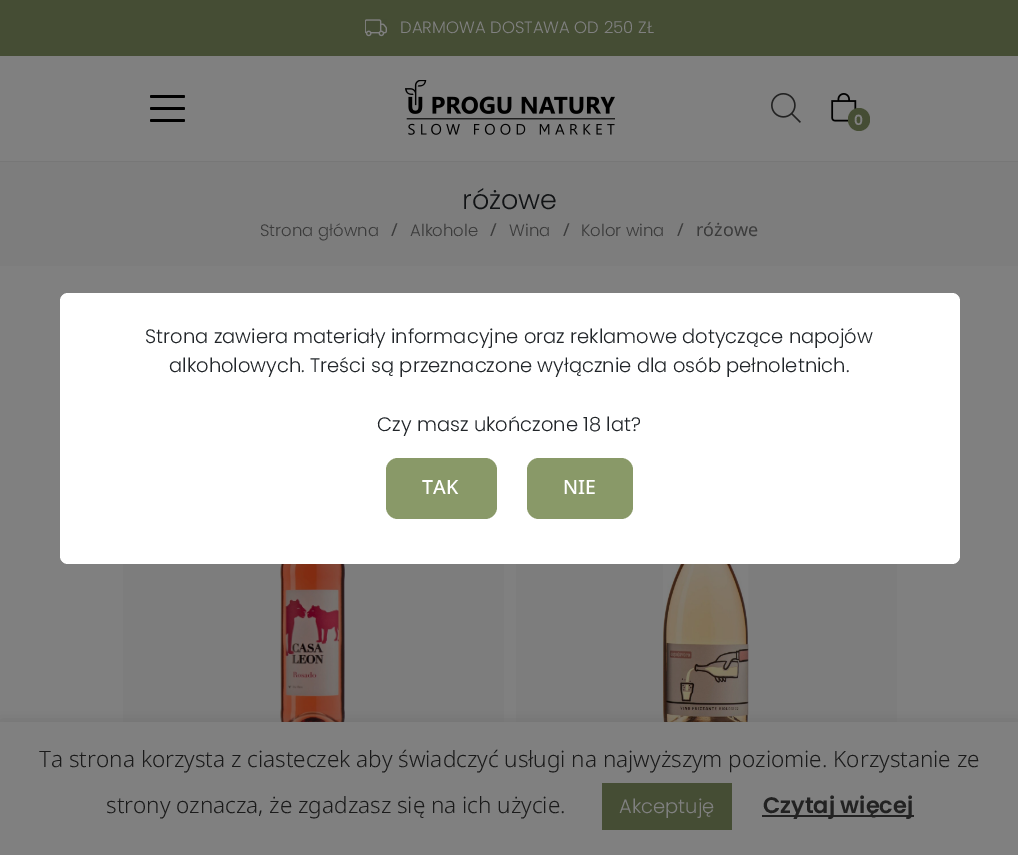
%!PS-Adobe-3.0
%%BoundingBox: 0 0 1018 855
%%LanguageLevel: 3
%%Pages: 1
%%EndComments
%%BeginProlog
/f { fill } bind def
/fn { [ exch dup neg 0 0 3 -1 roll 0 0 ] selectfont } def
/tx { moveto show } def
/bx { rectfill } def
/al { dup .setfillconstantalpha .setstrokeconstantalpha } def
/rr { 5 dict begin { /r /h /w /y /x } { exch def } forall
  x r add y moveto x w add y 2 copy h add r arct x w add y h add x 1 index r arct
  x y h add x y r arct x y 2 copy exch w add exch r arct closepath end } def
/sh { 12 dict begin { /a /b /q /h /w /y /x } { exch def } forall gsave /was 0 def
  9 -2 -9 { dup b mul 4 div /e exch def 1 sub .425 mul 2.718 exch exp 1 add a .99 .min exch div /now exch def
    1 1 now sub 1 was sub div sub al /was now def
    w h .min e 2 mul add 0 gt { x e sub y e sub w e 2 mul add h e 2 mul add
      q e add b .6 mul add w h .min 2 div e add .min 0 .max rr fill } if } for grestore end } def
/im { 5 dict begin { /h /w /y /x /name } { exch def } forall
  gsave x y translate w h scale
  w h 8 [w 0 0 h 0 0] name (r) file false 3 colorimage grestore end } def
%%EndProlog
%%BeginSetup
<< /PageSize [1018 855] /PageUsesTransparency true >> setpagedevice
%%EndSetup
%%Page: 1 1
0 .pushpdf14devicefilter
0 855 translate 1 -1 scale
4 setmiterlimit
0.502 setgray
0 0 1018 855 bx
0.271 0.302 0.204 setrgbcolor
0 0 1018 56 bx
(image0.raw) 365 19 22 18 im
/Poppins-Light 16.5 fn
0.502 setgray
(DARMOWA DOSTAWA OD 250 ZŁ) 400 33 tx
0.467 setgray
0 161 1018 1 bx
0 setgray
150 95 35 3 1.5 rr f
150 107 35 3 1.5 rr f
150 119 35 3 1.5 rr f
(image1.raw) 405 80 210 55 im
(image2.raw) 771 93 30 30 im
(image3.raw) 831 93 26 29 im
0.271 0.302 0.204 setrgbcolor
848 108 22 23 11 rr f
/Poppins-SemiBold 14 fn
0.502 setgray
(0) 854 125 tx
0.49 setgray
0 162 1018 104 bx
/Poppins-Light 27 fn
0.067 0.075 0.082 setrgbcolor
(różowe) 462 209 tx
/Poppins-Light 16.5 fn
0.231 setgray
(Strona główna) 260 236 tx
/NotoSans-Regular 18 fn
(/) 391 236 tx
/Poppins-Light 16.5 fn
(Alkohole) 410 236 tx
/NotoSans-Regular 18 fn
(/) 490 236 tx
/Poppins-Light 16.5 fn
(Wina) 509 236 tx
/NotoSans-Regular 18 fn
(/) 563 236 tx
/Poppins-Light 16.5 fn
(Kolor wina) 581 236 tx
/NotoSans-Regular 18 fn
(/) 677 236 tx
(różowe) 696 236 tx
0.49 setgray
123 564 381 158 bx
(image4.raw) 280 564 65 158 im
516 564 381 158 bx
(image5.raw) 663 564 86 158 im
1 setgray
60 293 900 271 8 rr f
/Poppins-Light 19.5 fn
0.129 0.145 0.161 setrgbcolor
(Strona zawiera materiały informacyjne oraz reklamowe dotyczące napojów) 145 343 tx
(alkoholowych. Treści są przeznaczone wyłącznie dla osób pełnoletnich.) 169 372 tx
(Czy masz ukończone 18 lat?) 377 431 tx
0.537 0.6 0.408 setrgbcolor
386 458 111 61 12 rr f
/NotoSans-Medium 19.5 fn
1 setgray
(TAK) 422 494 tx
0.537 0.6 0.408 setrgbcolor
527 458 106 61 12 rr f
1 setgray
(NIE) 563 494 tx
0.337 setgray
0 720 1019 134 0 7.5 0.3 sh
0.502 setgray
0 722 1018 133 bx
/NotoSans-Light 22.5 fn
0.102 setgray
(Ta strona korzysta z ciasteczek aby świadczyć usługi na najwyższym poziomie. Korzystanie ze) 39 767 tx
(strony oznacza, że zgadzasz się na ich użycie.) 106 813 tx
0.271 0.302 0.204 setrgbcolor
602 783 130 47 bx
/Poppins-Light 19.5 fn
0.502 setgray
(Akceptuję) 619 813 tx
0.133 setgray
762 815 152 2 bx
/Poppins-SemiBold 22.5 fn
(Czytaj więcej) 763 813 tx
.poppdf14devicefilter showpage
%%EOF
